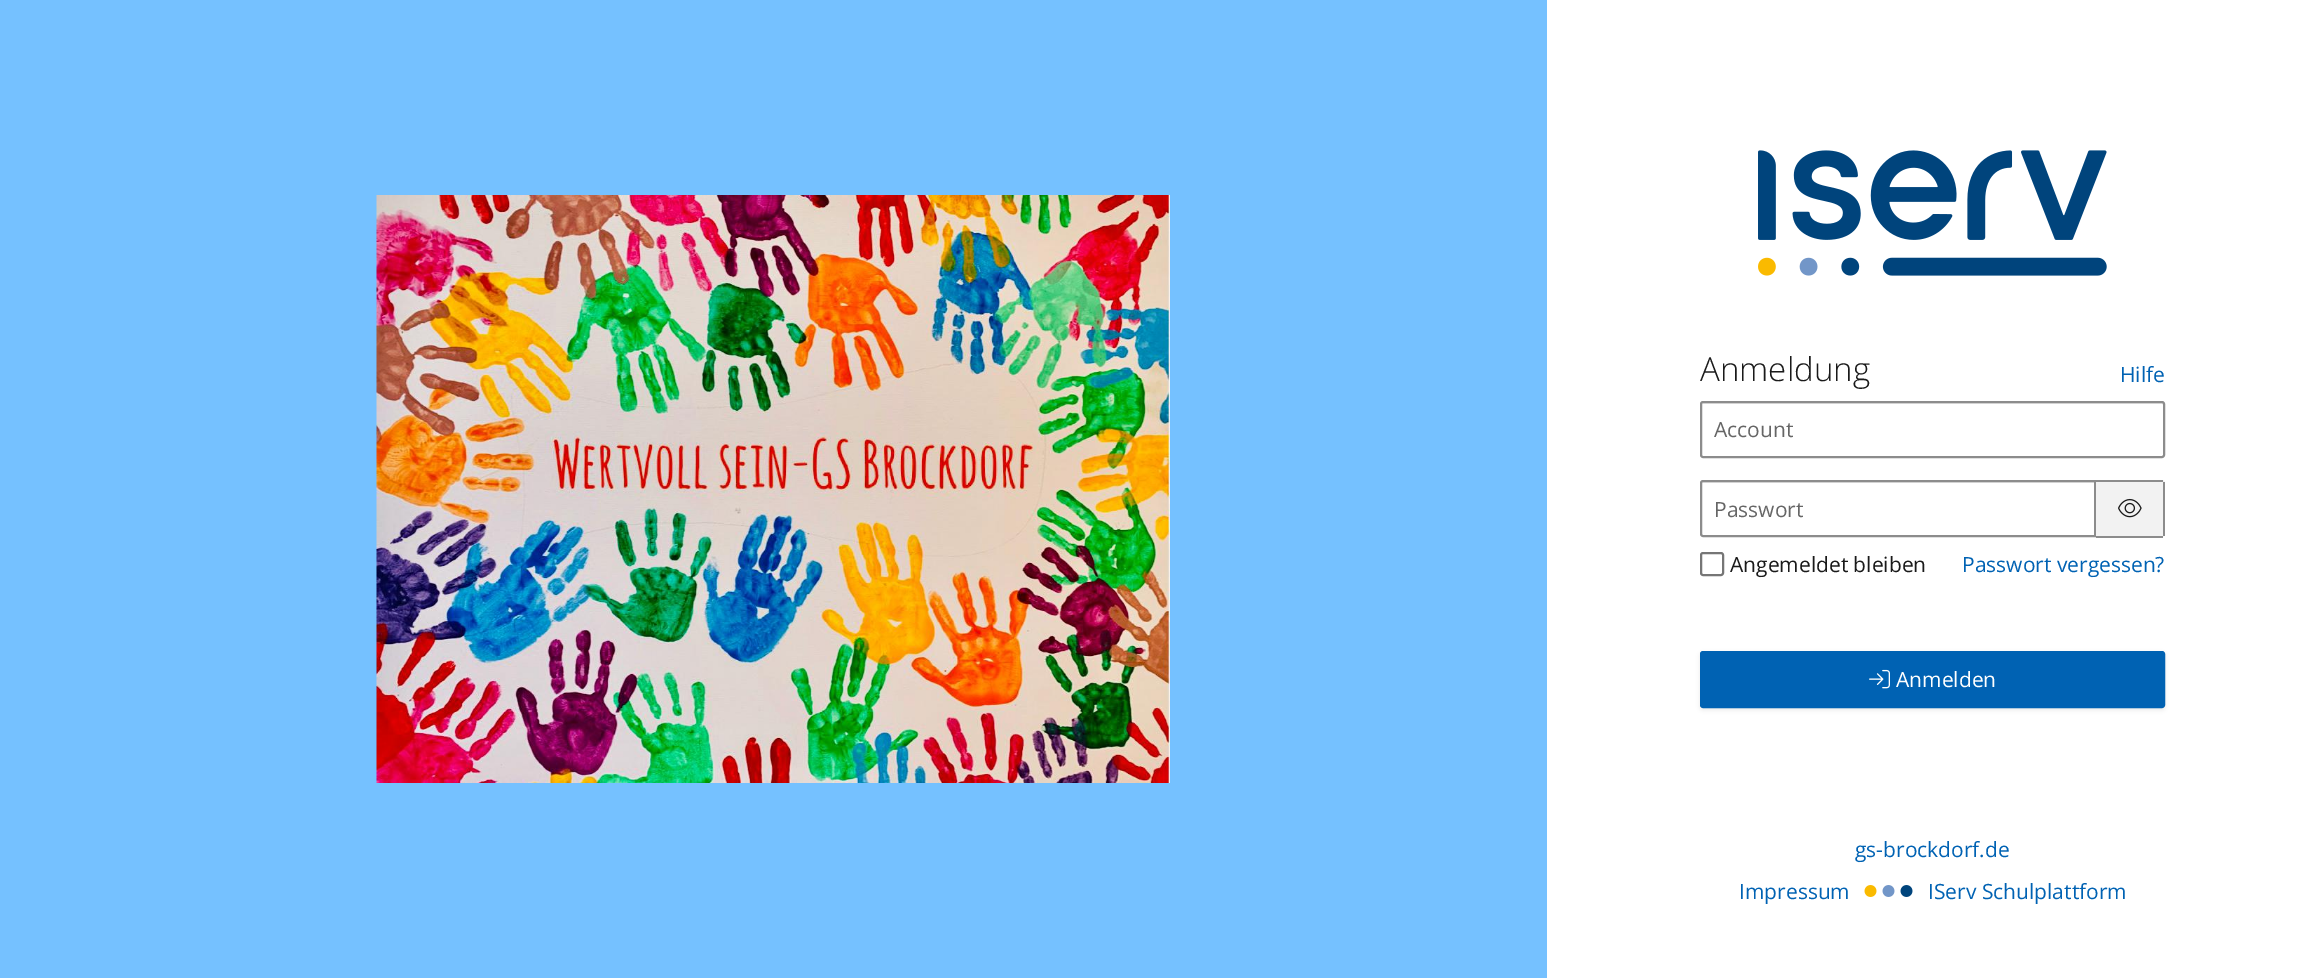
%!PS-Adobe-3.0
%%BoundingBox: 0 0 2318 978
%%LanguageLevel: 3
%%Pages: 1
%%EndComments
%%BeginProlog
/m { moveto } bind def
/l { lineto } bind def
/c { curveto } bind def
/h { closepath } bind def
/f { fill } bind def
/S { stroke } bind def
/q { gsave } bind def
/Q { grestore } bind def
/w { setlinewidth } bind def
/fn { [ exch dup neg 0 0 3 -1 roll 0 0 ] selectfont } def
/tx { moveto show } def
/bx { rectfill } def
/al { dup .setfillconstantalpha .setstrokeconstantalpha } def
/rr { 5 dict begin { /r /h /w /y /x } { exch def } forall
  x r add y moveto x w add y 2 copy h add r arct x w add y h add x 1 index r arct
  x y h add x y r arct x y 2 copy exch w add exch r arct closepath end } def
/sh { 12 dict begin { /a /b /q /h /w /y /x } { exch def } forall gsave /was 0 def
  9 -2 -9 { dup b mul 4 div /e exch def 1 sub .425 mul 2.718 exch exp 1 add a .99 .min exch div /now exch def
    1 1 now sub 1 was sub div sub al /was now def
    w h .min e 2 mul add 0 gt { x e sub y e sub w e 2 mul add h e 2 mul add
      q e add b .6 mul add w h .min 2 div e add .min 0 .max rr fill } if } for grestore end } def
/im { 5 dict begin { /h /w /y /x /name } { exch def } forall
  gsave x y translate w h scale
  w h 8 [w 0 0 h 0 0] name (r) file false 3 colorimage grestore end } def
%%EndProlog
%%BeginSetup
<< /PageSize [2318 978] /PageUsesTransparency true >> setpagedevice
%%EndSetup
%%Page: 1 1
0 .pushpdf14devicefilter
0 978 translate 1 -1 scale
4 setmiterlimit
1 setgray
0 0 2318 978 bx
0.459 0.757 1 setrgbcolor
0 0 1547 978 bx
(image0.raw) 376 195 794 588 im
(image1.raw) 1758 150 349 126 im
/OpenSans-Light 33 fn
0.102 setgray
(Anmeldung) 1700 381 tx
/OpenSans-Regular 21 fn
0 0.384 0.702 setrgbcolor
(Hilfe) 2120 382 tx
0.925 setgray
1702 402 m 1701 402 1701 403 1701 404 c 2162 404 l 2163 405 l 2163 404 2163 402 2162 402 c h f
0.549 setgray
2 w
1701 402 463 55 2 rr S
0.4 setgray
(Account) 1714 437 tx
0.925 setgray
1702 483 m 2094 483 l 2094 482 l 1702 482 l 1701 482 1701 483 1701 484 c h f
0.549 setgray
1703 481 m 2095 481 l 2095 536 l 1703 536 l 1702 536 1701 535 1701 534 c 1701 483 l 1701 482 1702 481 1703 481 c h S
0.4 setgray
(Passwort) 1714 517 tx
0.949 setgray
2096 480 m 2162 480 l 2163.5 480 2165 481.5 2165 483 c 2165 534 l 2165 535.5 2163.5 537 2162 537 c 2096 537 l h f
0.549 setgray
2096 480 67 2 bx
2163 482 2 54 bx
2096 536 67 2 bx
(image2.raw) 2118 498 24 20 im
0.463 setgray
1701 553 22 22 2 rr S
0.102 setgray
(Angemeldet bleiben) 1730 572 tx
0 0.384 0.702 setrgbcolor
(Passwort vergessen?) 1962 572 tx
0 setgray
1700 653 465 57 3 2 0.08 sh
0 0.384 0.702 setrgbcolor
1701 652 463 55 2 rr q f Q
S
(image3.raw) 1869 669 21 20 im
1 setgray
(Anmelden) 1896 687 tx
0 0.384 0.702 setrgbcolor
(gs-brockdorf.de) 1855 857 tx
(Impressum) 1739 899 tx
(image4.raw) 1864 885 13 12 im
(image5.raw) 1882 885 13 12 im
(image6.raw) 1900 885 13 12 im
(IServ Schulplattform) 1928 899 tx
.poppdf14devicefilter showpage
%%EOF
